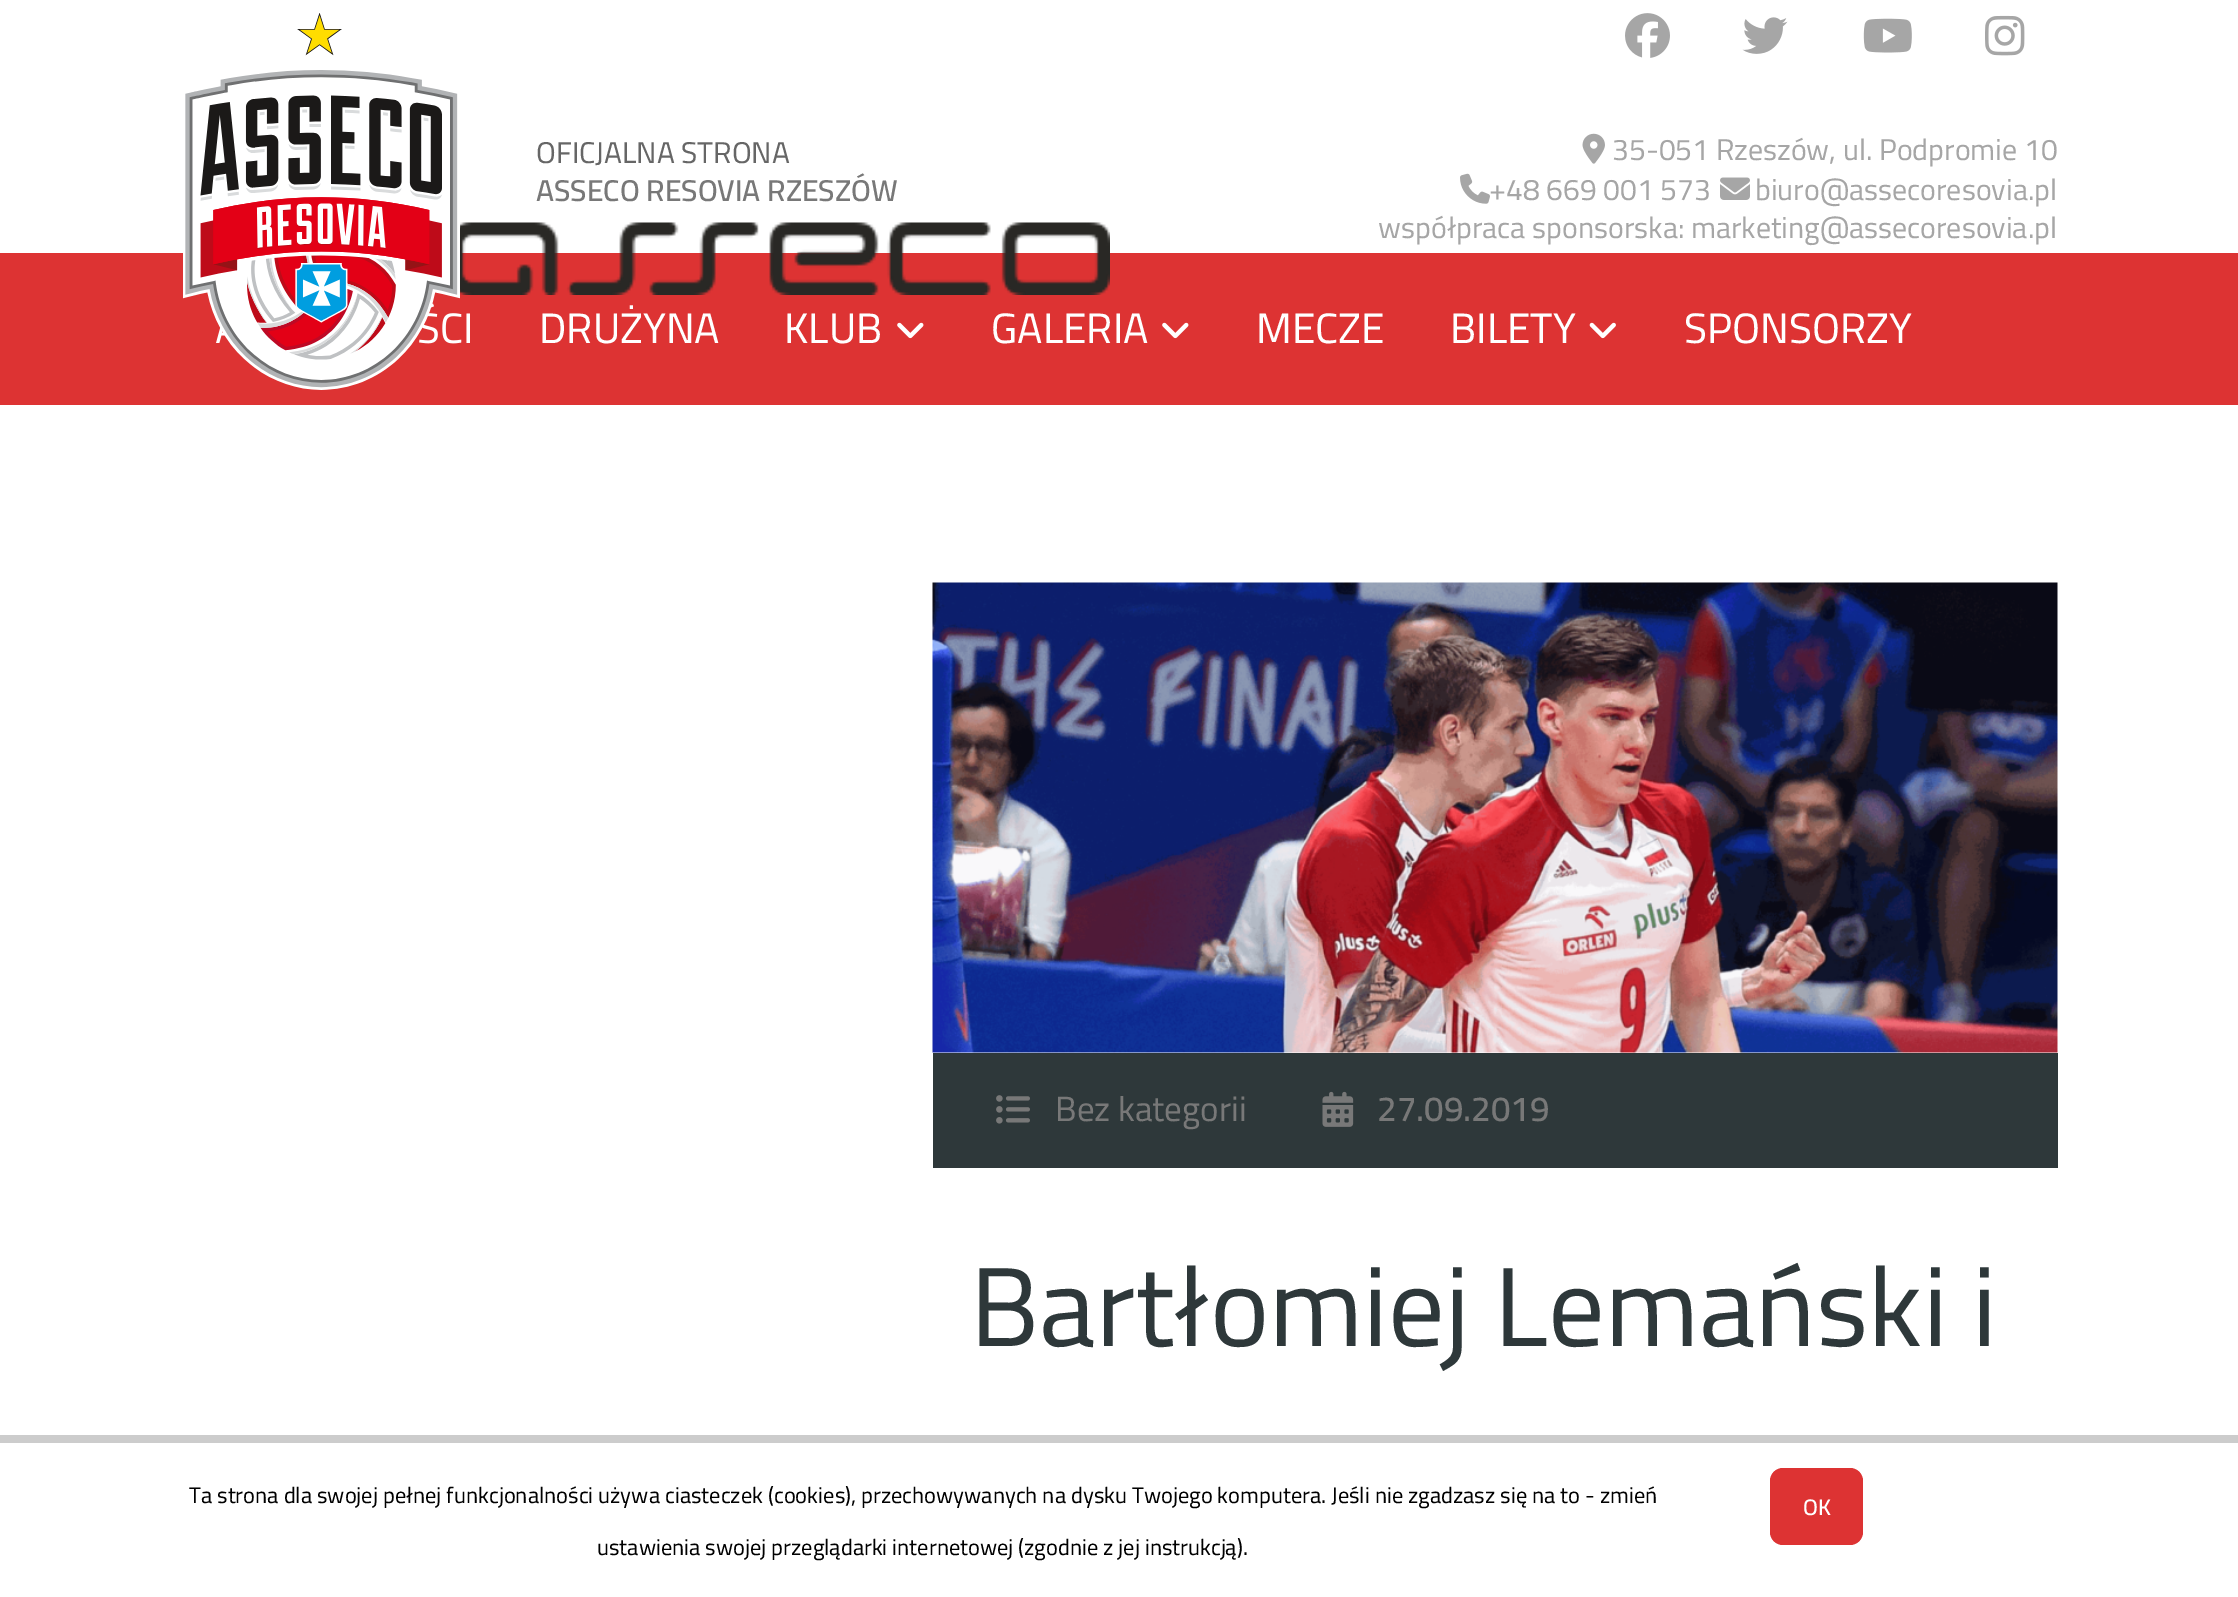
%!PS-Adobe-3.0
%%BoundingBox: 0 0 2238 1597
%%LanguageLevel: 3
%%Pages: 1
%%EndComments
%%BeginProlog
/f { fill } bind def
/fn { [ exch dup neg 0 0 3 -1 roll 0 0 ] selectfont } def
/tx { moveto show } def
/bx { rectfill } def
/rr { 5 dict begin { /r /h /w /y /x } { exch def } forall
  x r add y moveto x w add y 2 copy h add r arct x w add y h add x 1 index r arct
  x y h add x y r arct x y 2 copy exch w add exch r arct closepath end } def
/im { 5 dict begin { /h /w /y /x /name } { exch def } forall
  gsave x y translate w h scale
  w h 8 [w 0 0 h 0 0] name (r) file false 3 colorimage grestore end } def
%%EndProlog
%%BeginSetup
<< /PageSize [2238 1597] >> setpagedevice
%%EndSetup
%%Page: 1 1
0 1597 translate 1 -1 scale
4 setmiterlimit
1 setgray
0 0 2238 1597 bx
0.867 0.2 0.2 setrgbcolor
0 253 2238 152 bx
/Cairo-Regular 42.5 fn
1 setgray
(ŚCI) 417 343 tx
(image0.raw) 183 13 277 377 im
/Cairo-Regular 30 fn
0.4 setgray
(OFICJALNA STRONA) 536 163 tx
/Cairo-SemiBold 30 fn
0.471 setgray
(ASSECO RESOVIA RZESZÓW) 536 201 tx
(image1.raw) 1625 13 45 45 im
(image2.raw) 1742 17 46 37 im
(image3.raw) 1863 18 49 35 im
(image4.raw) 1985 15 40 41 im
(image5.raw) 1582 133 23 31 im
/Cairo-Regular 30 fn
0.651 setgray
(35-051 Rzeszów, ul. Podpromie 10) 1612 160 tx
(image6.raw) 1460 173 30 31 im
(+48 669 001 573) 1489 200 tx
(image7.raw) 1720 177 30 23 im
(biuro@assecoresovia.pl) 1755 200 tx
(współpraca sponsorska: marketing@assecoresovia.pl) 1378 238 tx
(image8.raw) 460 222 650 73 im
/Cairo-Regular 42.5 fn
1 setgray
(DRUŻYNA) 539 343 tx
(KLUB) 784 343 tx
(image9.raw) 897 322 27 17 im
(GALERIA) 991 343 tx
(image9.raw) 1162 322 27 17 im
(MECZE) 1256 343 tx
(BILETY) 1450 343 tx
(image10.raw) 1589 322 27 17 im
(SPONSORZY) 1684 343 tx
(image11.raw) 932 582 1126 471 im
0.18 0.22 0.227 setrgbcolor
933 1053 1125 115 bx
(image12.raw) 996 1095 34 29 im
/Cairo-Regular 35 fn
0.471 setgray
(Bez kategorii) 1055 1121 tx
(image13.raw) 1322 1091 32 36 im
/Cairo-SemiBold 35 fn
(27.09.2019) 1377 1121 tx
/Cairo-Regular 112.5 fn
0.18 0.22 0.227 setrgbcolor
(Bartłomiej Lemański i) 970 1346 tx
0.8 setgray
0 1435 2238 8 bx
/Cairo-Regular 22.5 fn
0 setgray
(Ta strona dla swojej pełnej funkcjonalności używa ciasteczek \(cookies\), przechowywanych na dysku Twojego komputera. Jeśli nie zgadzasz się na to - zmień) 189 1503 tx
(ustawienia swojej przeglądarki internetowej \(zgodnie z jej instrukcją\).) 597 1555 tx
0.867 0.2 0.2 setrgbcolor
1770 1468 93 77 13 rr f
/Cairo-SemiBold 22.5 fn
1 setgray
(OK) 1803 1515 tx
showpage
%%EOF
